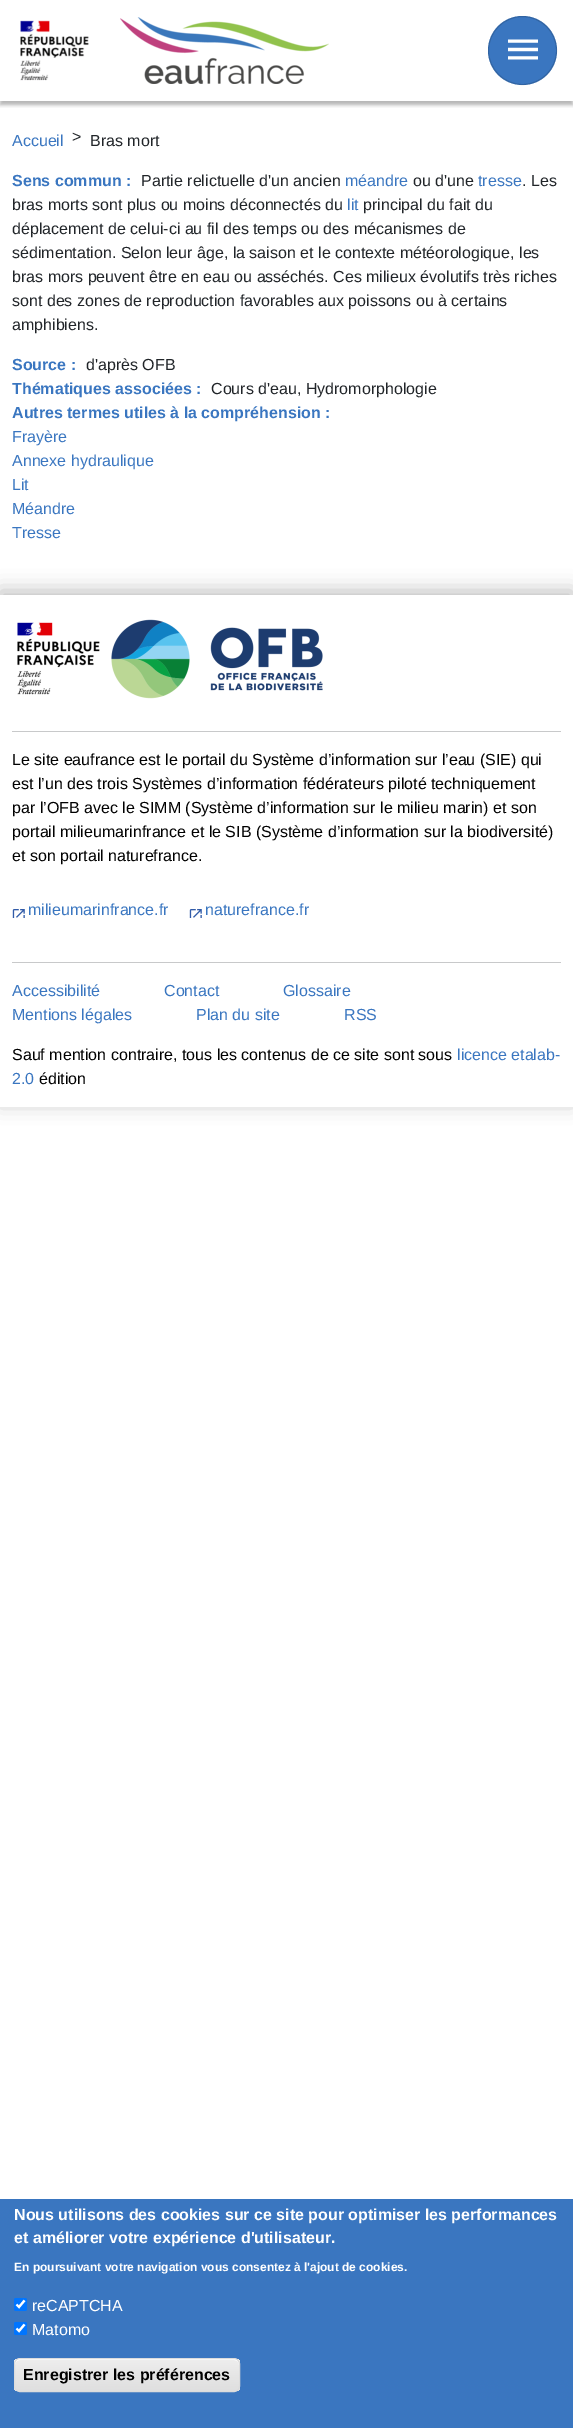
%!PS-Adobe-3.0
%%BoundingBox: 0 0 573 2428
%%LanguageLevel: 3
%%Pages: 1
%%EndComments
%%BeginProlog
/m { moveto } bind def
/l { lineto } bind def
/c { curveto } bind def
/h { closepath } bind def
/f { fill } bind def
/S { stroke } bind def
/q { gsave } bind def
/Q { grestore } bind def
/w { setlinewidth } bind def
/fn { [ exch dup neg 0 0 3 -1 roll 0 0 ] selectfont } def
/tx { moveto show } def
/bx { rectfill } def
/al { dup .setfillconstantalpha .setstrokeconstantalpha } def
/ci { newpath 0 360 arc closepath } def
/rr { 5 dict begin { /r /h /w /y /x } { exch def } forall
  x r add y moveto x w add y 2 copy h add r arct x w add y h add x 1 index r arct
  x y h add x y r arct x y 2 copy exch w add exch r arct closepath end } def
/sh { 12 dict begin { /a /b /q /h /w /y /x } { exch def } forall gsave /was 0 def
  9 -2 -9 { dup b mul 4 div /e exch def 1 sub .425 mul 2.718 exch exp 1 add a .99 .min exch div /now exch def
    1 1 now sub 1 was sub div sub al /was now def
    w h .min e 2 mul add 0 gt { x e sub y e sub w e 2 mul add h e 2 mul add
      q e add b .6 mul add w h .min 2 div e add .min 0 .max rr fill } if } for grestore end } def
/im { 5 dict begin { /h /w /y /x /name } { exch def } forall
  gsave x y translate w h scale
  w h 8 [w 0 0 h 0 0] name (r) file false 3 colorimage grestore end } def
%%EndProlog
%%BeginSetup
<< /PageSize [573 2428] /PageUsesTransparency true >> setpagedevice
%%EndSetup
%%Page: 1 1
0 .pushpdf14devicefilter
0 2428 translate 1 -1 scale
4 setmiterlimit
1 setgray
0 0 573 2428 bx
q
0 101 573 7 rectclip
0 setgray
0 4 573 101 0 2 0.3 sh
Q
(image0.raw) 20 20 69 61 im
(image1.raw) 120 17 209 67 im
0.227 0.463 0.753 setrgbcolor
522.5 50.5 34.5 ci f
0.15 al
0 setgray
522.5 50.5 34 ci S
1 al
(image2.raw) 508 39 30 21 im
/LiberationSans-Regular 16 fn
0.227 0.463 0.753 setrgbcolor
(Accueil) 12 146 tx
0.129 0.145 0.161 setrgbcolor
(>) 72 142 tx
(Bras mort) 90 146 tx
/LiberationSans-Bold 16 fn
0.227 0.463 0.753 setrgbcolor
(Sens commun :) 12 186 tx
/LiberationSans-Regular 16 fn
0.129 0.145 0.161 setrgbcolor
(Partie relictuelle d'un ancien) 141 186 tx
0.227 0.463 0.753 setrgbcolor
(méandre) 345 186 tx
0.129 0.145 0.161 setrgbcolor
(ou d'une) 413 186 tx
0.227 0.463 0.753 setrgbcolor
(tresse) 478 186 tx
0.129 0.145 0.161 setrgbcolor
(. Les) 522 186 tx
(bras morts sont plus ou moins déconnectés du) 12 210 tx
0.227 0.463 0.753 setrgbcolor
(lit) 347 210 tx
0.129 0.145 0.161 setrgbcolor
(principal du fait du) 363 210 tx
(déplacement de celui-ci au fil des temps ou des mécanismes de) 12 234 tx
(sédimentation. Selon leur âge, la saison et le contexte météorologique, les) 12 258 tx
(bras mors peuvent être en eau ou asséchés. Ces milieux évolutifs très riches) 12 282 tx
(sont des zones de reproduction favorables aux poissons ou à certains) 12 306 tx
(amphibiens.) 12 330 tx
/LiberationSans-Bold 16 fn
0.227 0.463 0.753 setrgbcolor
(Source :) 12 370 tx
/LiberationSans-Regular 16 fn
0.129 0.145 0.161 setrgbcolor
(d'après OFB) 86 370 tx
/LiberationSans-Bold 16 fn
0.227 0.463 0.753 setrgbcolor
(Thématiques associées :) 12 394 tx
/LiberationSans-Regular 16 fn
0.129 0.145 0.161 setrgbcolor
(Cours d'eau, Hydromorphologie) 211 394 tx
/LiberationSans-Bold 16 fn
0.227 0.463 0.753 setrgbcolor
(Autres termes utiles à la compréhension :) 12 418 tx
/LiberationSans-Regular 16 fn
(Frayère) 12 442 tx
(Annexe hydraulique) 12 466 tx
(Lit) 12 490 tx
(Méandre) 12 514 tx
(Tresse) 12 538 tx
q
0 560 m 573 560 l 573 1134 l 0 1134 l h 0 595 m 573 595 l 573 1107 l 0 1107 l h eoclip newpath
0 setgray
0 591 573 512 0 10 0.25 sh
Q
(image3.raw) 17 622 83 73 im
(image4.raw) 111 619 212 80 im
0.784 0.788 0.792 setrgbcolor
12 731 549 1 bx
0 setgray
(Le site eaufrance est le portail du Système d’information sur l’eau \(SIE\) qui) 12 765 tx
(est l’un des trois Systèmes d’information fédérateurs piloté techniquement) 12 789 tx
(par l’OFB avec le SIMM \(Système d’information sur le milieu marin\) et son) 12 813 tx
(portail milieumarinfrance et le SIB \(Système d’information sur la biodiversité\)) 12 837 tx
(et son portail naturefrance.) 12 861 tx
(image5.raw) 12 909 13 9 im
0.227 0.463 0.753 setrgbcolor
(milieumarinfrance.fr) 28 915 tx
(image5.raw) 189 909 13 9 im
(naturefrance.fr) 205 915 tx
0.784 0.788 0.792 setrgbcolor
12 962 549 1 bx
0.227 0.463 0.753 setrgbcolor
(Accessibilité) 12 996 tx
(Contact) 164 996 tx
(Glossaire) 283 996 tx
(Mentions légales) 12 1020 tx
(Plan du site) 196 1020 tx
(RSS) 344 1020 tx
0 setgray
(Sauf mention contraire, tous les contenus de ce site sont sous) 12 1060 tx
0.227 0.463 0.753 setrgbcolor
(licence etalab-) 457 1060 tx
(2.0) 12 1084 tx
0 setgray
(édition) 39 1084 tx
0.227 0.463 0.753 setrgbcolor
0 2199 573 229 bx
/LiberationSans-Bold 16 fn
1 setgray
(Nous utilisons des cookies sur ce site pour optimiser les performances) 14 2220 tx
(et améliorer votre expérience d'utilisateur.) 14 2243 tx
/LiberationSans-Bold 12 fn
(En poursuivant votre navigation vous consentez à l'ajout de cookies.) 14 2271 tx
0 0.459 1 setrgbcolor
14 2298 13 13 2 rr f
1 setgray
2.1 w
16.5 2304.5 m 19 2307 l 24.5 2300.5 l S
/LiberationSans-Regular 16 fn
(reCAPTCHA) 32 2311 tx
0 0.459 1 setrgbcolor
14 2322 13 13 2 rr f
1 setgray
16.5 2328.5 m 19 2331 l 24.5 2324.5 l S
(Matomo) 32 2335 tx
q
14 2358 226 34 6 rr clip newpath
q 14 2359 m 240 2359 l 240 2391 l 14 2391 l h clip newpath
<< /ShadingType 2 /ColorSpace /DeviceRGB /Coords [127 2359 127 2391] /Extend [true true] /Function << /FunctionType 3 /Domain [0 1] /Functions [<< /FunctionType 2 /Domain [0 1] /C0 [0.929 0.929 0.929] /C1 [0.929 0.929 0.929] /N 1 >> << /FunctionType 2 /Domain [0 1] /C0 [0.929 0.929 0.929] /C1 [0.875 0.875 0.875] /N 1 >>] /Bounds [0.05] /Encode [0 1 0 1] >> >> shfill Q
Q
20 2360 m 234 2360 l 237 2360 239 2362 239 2365 c 239 2364 l 239 2361 237 2359 234 2359 c 20 2359 l 17 2359 15 2361 15 2364 c 15 2365 l 15 2362 17 2360 20 2360 c h f
0.863 setgray
1 w
14.5 2358.5 225 33 5.5 rr S
/LiberationSans-Bold 16 fn
0 setgray
(Enregistrer les préférences) 23 2380 tx
.poppdf14devicefilter showpage
%%EOF
